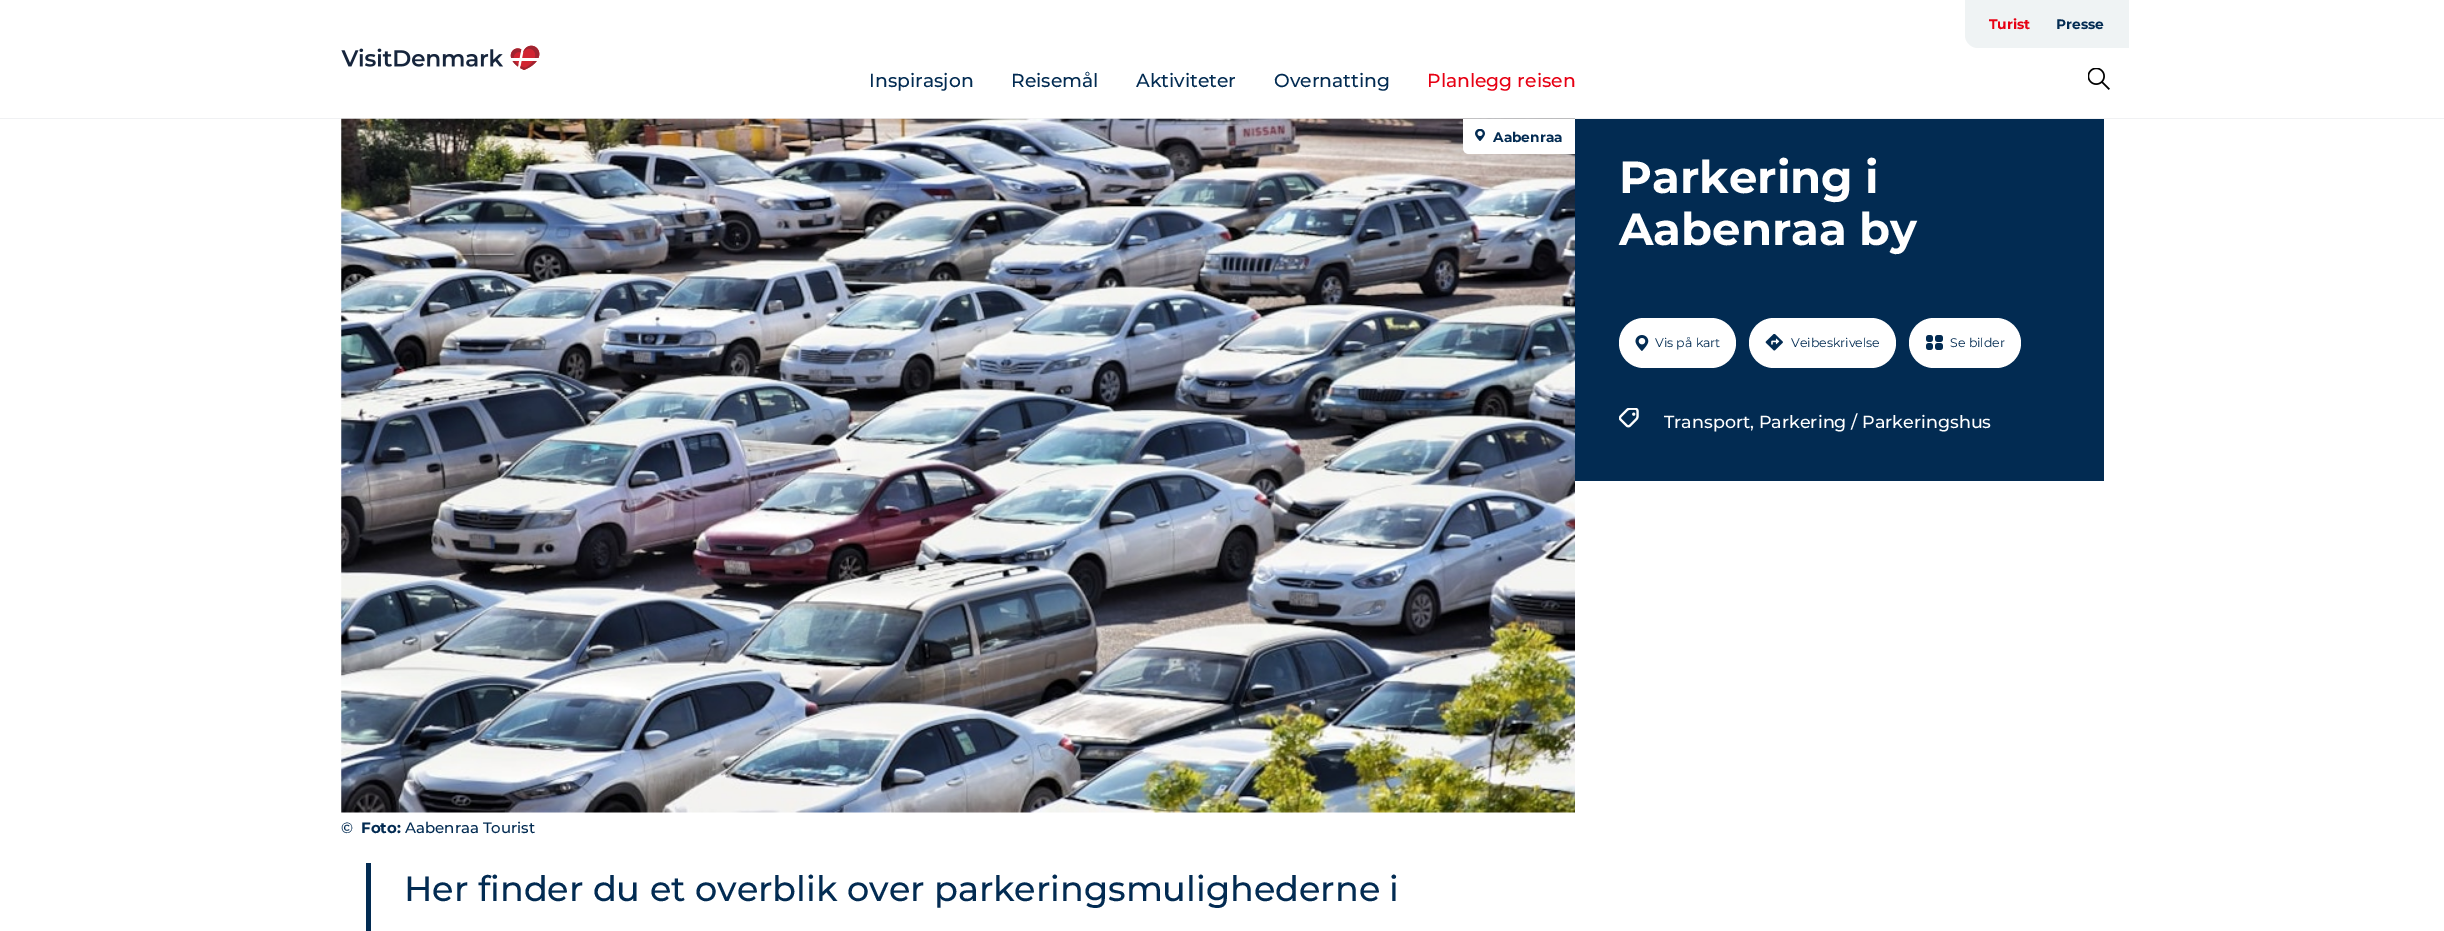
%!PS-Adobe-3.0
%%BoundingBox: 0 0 2444 931
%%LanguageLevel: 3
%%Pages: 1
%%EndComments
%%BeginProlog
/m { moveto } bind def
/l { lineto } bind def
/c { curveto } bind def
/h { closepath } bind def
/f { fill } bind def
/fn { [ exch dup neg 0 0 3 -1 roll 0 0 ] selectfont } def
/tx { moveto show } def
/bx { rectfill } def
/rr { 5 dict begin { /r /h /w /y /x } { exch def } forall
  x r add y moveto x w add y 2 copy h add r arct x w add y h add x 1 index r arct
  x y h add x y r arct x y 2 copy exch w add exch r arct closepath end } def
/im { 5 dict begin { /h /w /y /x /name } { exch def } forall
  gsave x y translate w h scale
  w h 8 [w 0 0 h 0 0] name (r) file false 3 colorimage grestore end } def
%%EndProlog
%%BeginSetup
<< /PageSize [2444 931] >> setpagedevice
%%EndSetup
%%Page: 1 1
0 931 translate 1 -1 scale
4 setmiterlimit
1 setgray
0 0 2444 931 bx
0.941 0.945 0.953 setrgbcolor
0 118 2444 1 bx
(image0.raw) 341 45 199 25 im
0.937 0.953 0.957 setrgbcolor
1965 0 m 2129 0 l 2129 48 l 1978 48 l 1971 48 1965 42 1965 35 c h f
/Montserrat-Bold 13.75 fn
0.906 0 0.075 setrgbcolor
(Turist) 1989 29 tx
0.008 0.169 0.322 setrgbcolor
(Presse) 2056 29 tx
/Montserrat-Medium 18.75 fn
(Inspirasjon) 869 87 tx
(Reisemål) 1011 87 tx
(Aktiviteter) 1136 87 tx
(Overnatting) 1274 87 tx
0.906 0 0.075 setrgbcolor
(Planlegg reisen) 1427 87 tx
(image1.raw) 2088 68 22 22 im
(image2.raw) 341 118 1234 695 im
1 setgray
1463 119 m 1575 119 l 1575 154 l 1469 154 l 1465.5 154 1463 151.5 1463 148 c h f
(image3.raw) 1475 129 10 12 im
/Montserrat-Bold 13.75 fn
0.008 0.169 0.322 setrgbcolor
(Aabenraa) 1493 142 tx
/Montserrat-Medium 15 fn
(©) 341 833 tx
/Montserrat-Bold 15 fn
(Foto:) 361 833 tx
/Montserrat-Medium 15 fn
(Aabenraa Tourist) 405 833 tx
1575 119 529 362 bx
/Montserrat-Bold 45 fn
1 setgray
(Parkering i) 1619 193 tx
(Aabenraa by) 1619 245 tx
1619 318 117 50 25 rr f
(image4.raw) 1635 335 14 16 im
/Montserrat-Regular 12.5 fn
0.008 0.169 0.322 setrgbcolor
(Vis på kart) 1655 347 tx
1 setgray
1749 318 147 50 25 rr f
(image5.raw) 1765 334 18 17 im
0.008 0.169 0.322 setrgbcolor
(Veibeskrivelse) 1791 347 tx
1 setgray
1909 318 112 50 25 rr f
(image6.raw) 1926 335 17 15 im
0.008 0.169 0.322 setrgbcolor
(Se bilder) 1950 347 tx
(image7.raw) 1619 408 20 20 im
/Montserrat-Medium 17.5 fn
1 setgray
(Transport, Parkering / Parkeringshus) 1664 428 tx
0.008 0.169 0.322 setrgbcolor
366 863 5 68 bx
/Montserrat-Medium 35 fn
(Her finder du et overblik over parkeringsmulighederne i) 404 901 tx
showpage
%%EOF
